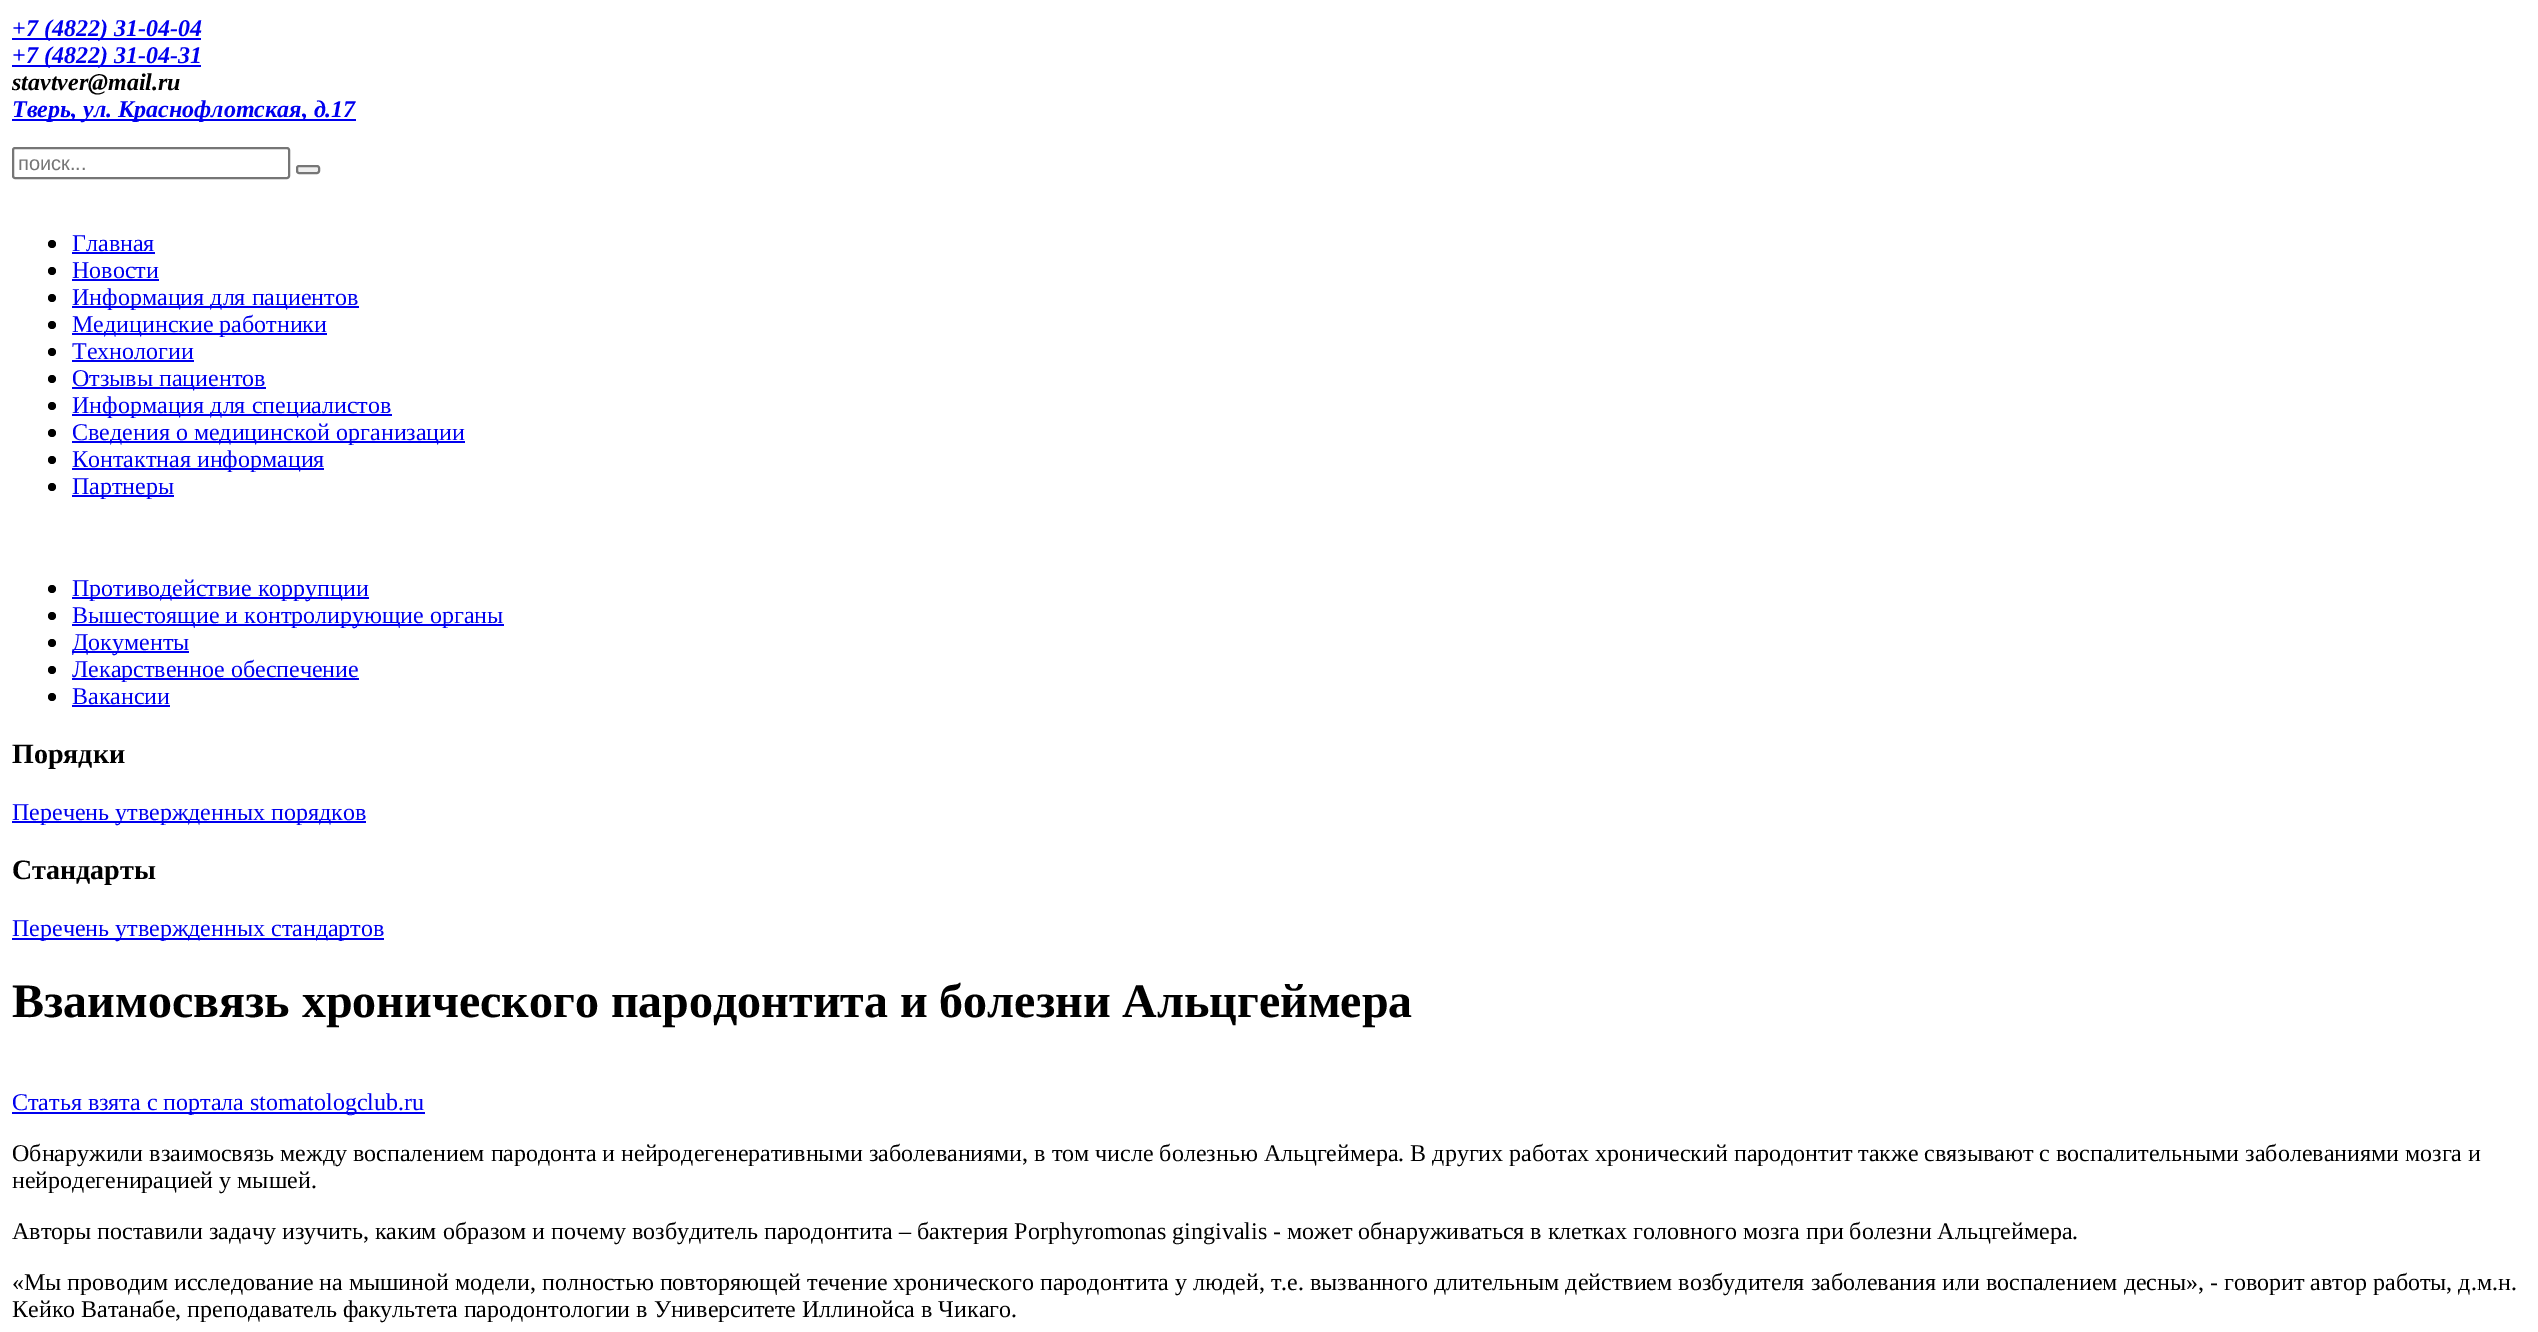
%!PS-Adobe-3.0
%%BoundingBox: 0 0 2538 1332
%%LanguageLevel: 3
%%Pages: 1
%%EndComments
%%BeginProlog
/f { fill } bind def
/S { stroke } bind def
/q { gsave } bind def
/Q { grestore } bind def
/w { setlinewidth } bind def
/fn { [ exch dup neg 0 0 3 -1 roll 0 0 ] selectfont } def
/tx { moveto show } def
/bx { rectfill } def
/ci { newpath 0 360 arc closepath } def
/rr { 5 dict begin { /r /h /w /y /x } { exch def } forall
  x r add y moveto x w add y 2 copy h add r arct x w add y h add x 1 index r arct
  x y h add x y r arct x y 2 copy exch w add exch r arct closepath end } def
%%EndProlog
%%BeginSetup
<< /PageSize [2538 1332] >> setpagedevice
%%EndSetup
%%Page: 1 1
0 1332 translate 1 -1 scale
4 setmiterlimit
1 setgray
0 0 2538 1332 bx
0 0 0.933 setrgbcolor
12 38 189 2 bx
/LiberationSerif-BoldItalic 24 fn
(+7 \(4822\) 31-04-04) 12 36 tx
12 65 189 2 bx
(+7 \(4822\) 31-04-31) 12 63 tx
0 setgray
(stavtver@mail.ru) 12 90 tx
0 0 0.933 setrgbcolor
12 119 344 2 bx
(Тверь, ул. Краснофлотская, д.17) 12 117 tx
0.463 setgray
2 w
13 148 276 30 2 rr S
/LiberationSans-Regular 20 fn
0.459 setgray
(поиск...) 18 170 tx
0.937 setgray
297 166 22 7 2 rr q f Q
0.463 setgray
S
0 setgray
52 244 4 ci f
/LiberationSerif-Regular 24 fn
0 0 0.933 setrgbcolor
(Главная) 72 251 tx
72 252 83 2 bx
0 setgray
52 271 4 ci f
0 0 0.933 setrgbcolor
(Новости) 72 278 tx
72 279 87 2 bx
0 setgray
52 298 4 ci f
0 0 0.933 setrgbcolor
72 306 287 2 bx
(Информация для пациентов) 72 305 tx
0 setgray
52 325 4 ci f
0 0 0.933 setrgbcolor
72 333 255 2 bx
(Медицинские работники) 72 332 tx
0 setgray
52 352 4 ci f
0 0 0.933 setrgbcolor
(Технологии) 72 359 tx
72 360 122 2 bx
0 setgray
52 379 4 ci f
0 0 0.933 setrgbcolor
72 387 194 2 bx
(Отзывы пациентов) 72 386 tx
0 setgray
52 406 4 ci f
0 0 0.933 setrgbcolor
72 414 320 2 bx
(Информация для специалистов) 72 413 tx
0 setgray
52 433 4 ci f
0 0 0.933 setrgbcolor
72 441 393 2 bx
(Сведения о медицинской организации) 72 440 tx
0 setgray
52 460 4 ci f
0 0 0.933 setrgbcolor
72 468 252 2 bx
(Контактная информация) 72 467 tx
0 setgray
52 487 4 ci f
0 0 0.933 setrgbcolor
72 495 102 2 bx
(Партнеры) 72 494 tx
0 setgray
52 589 4 ci f
0 0 0.933 setrgbcolor
72 597 297 2 bx
(Противодействие коррупции) 72 596 tx
0 setgray
52 616 4 ci f
0 0 0.933 setrgbcolor
72 624 432 2 bx
(Вышестоящие и контролирующие органы) 72 623 tx
0 setgray
52 643 4 ci f
0 0 0.933 setrgbcolor
72 651 117 2 bx
(Документы) 72 650 tx
0 setgray
52 670 4 ci f
0 0 0.933 setrgbcolor
72 678 287 2 bx
(Лекарственное обеспечение) 72 677 tx
0 setgray
52 697 4 ci f
0 0 0.933 setrgbcolor
(Вакансии) 72 704 tx
72 705 98 2 bx
/LiberationSerif-Bold 28 fn
0 setgray
(Порядки) 12 763 tx
0 0 0.933 setrgbcolor
12 821 354 2 bx
/LiberationSerif-Regular 24 fn
(Перечень утвержденных порядков) 12 820 tx
/LiberationSerif-Bold 28 fn
0 setgray
(Стандарты) 12 879 tx
0 0 0.933 setrgbcolor
12 938 372 2 bx
/LiberationSerif-Regular 24 fn
(Перечень утвержденных стандартов) 12 936 tx
/LiberationSerif-Bold 48 fn
0 setgray
(Взаимосвязь хронического пародонтита и болезни Альцгеймера) 12 1017 tx
0 0 0.933 setrgbcolor
12 1112 413 2 bx
/LiberationSerif-Regular 24 fn
(Статья взята с портала stomatologclub.ru) 12 1110 tx
0 setgray
(Обнаружили взаимосвязь между воспалением пародонта и нейродегенеративными заболеваниями, в том числе болезнью Альцгеймера. В других работах хронический пародонтит также связывают с воспалительными заболеваниями мозга и) 12 1161 tx
(нейродегенирацией у мышей.) 12 1188 tx
(Авторы поставили задачу изучить, каким образом и почему возбудитель пародонтита – бактерия Porphyromonas gingivalis - может обнаруживаться в клетках головного мозга при болезни Альцгеймера.) 12 1239 tx
(«Мы проводим исследование на мышиной модели, полностью повторяющей течение хронического пародонтита у людей, т.е. вызванного длительным действием возбудителя заболевания или воспалением десны», - говорит автор работы, д.м.н.) 12 1290 tx
(Кейко Ватанабе, преподаватель факультета пародонтологии в Университете Иллинойса в Чикаго.) 12 1317 tx
showpage
%%EOF
